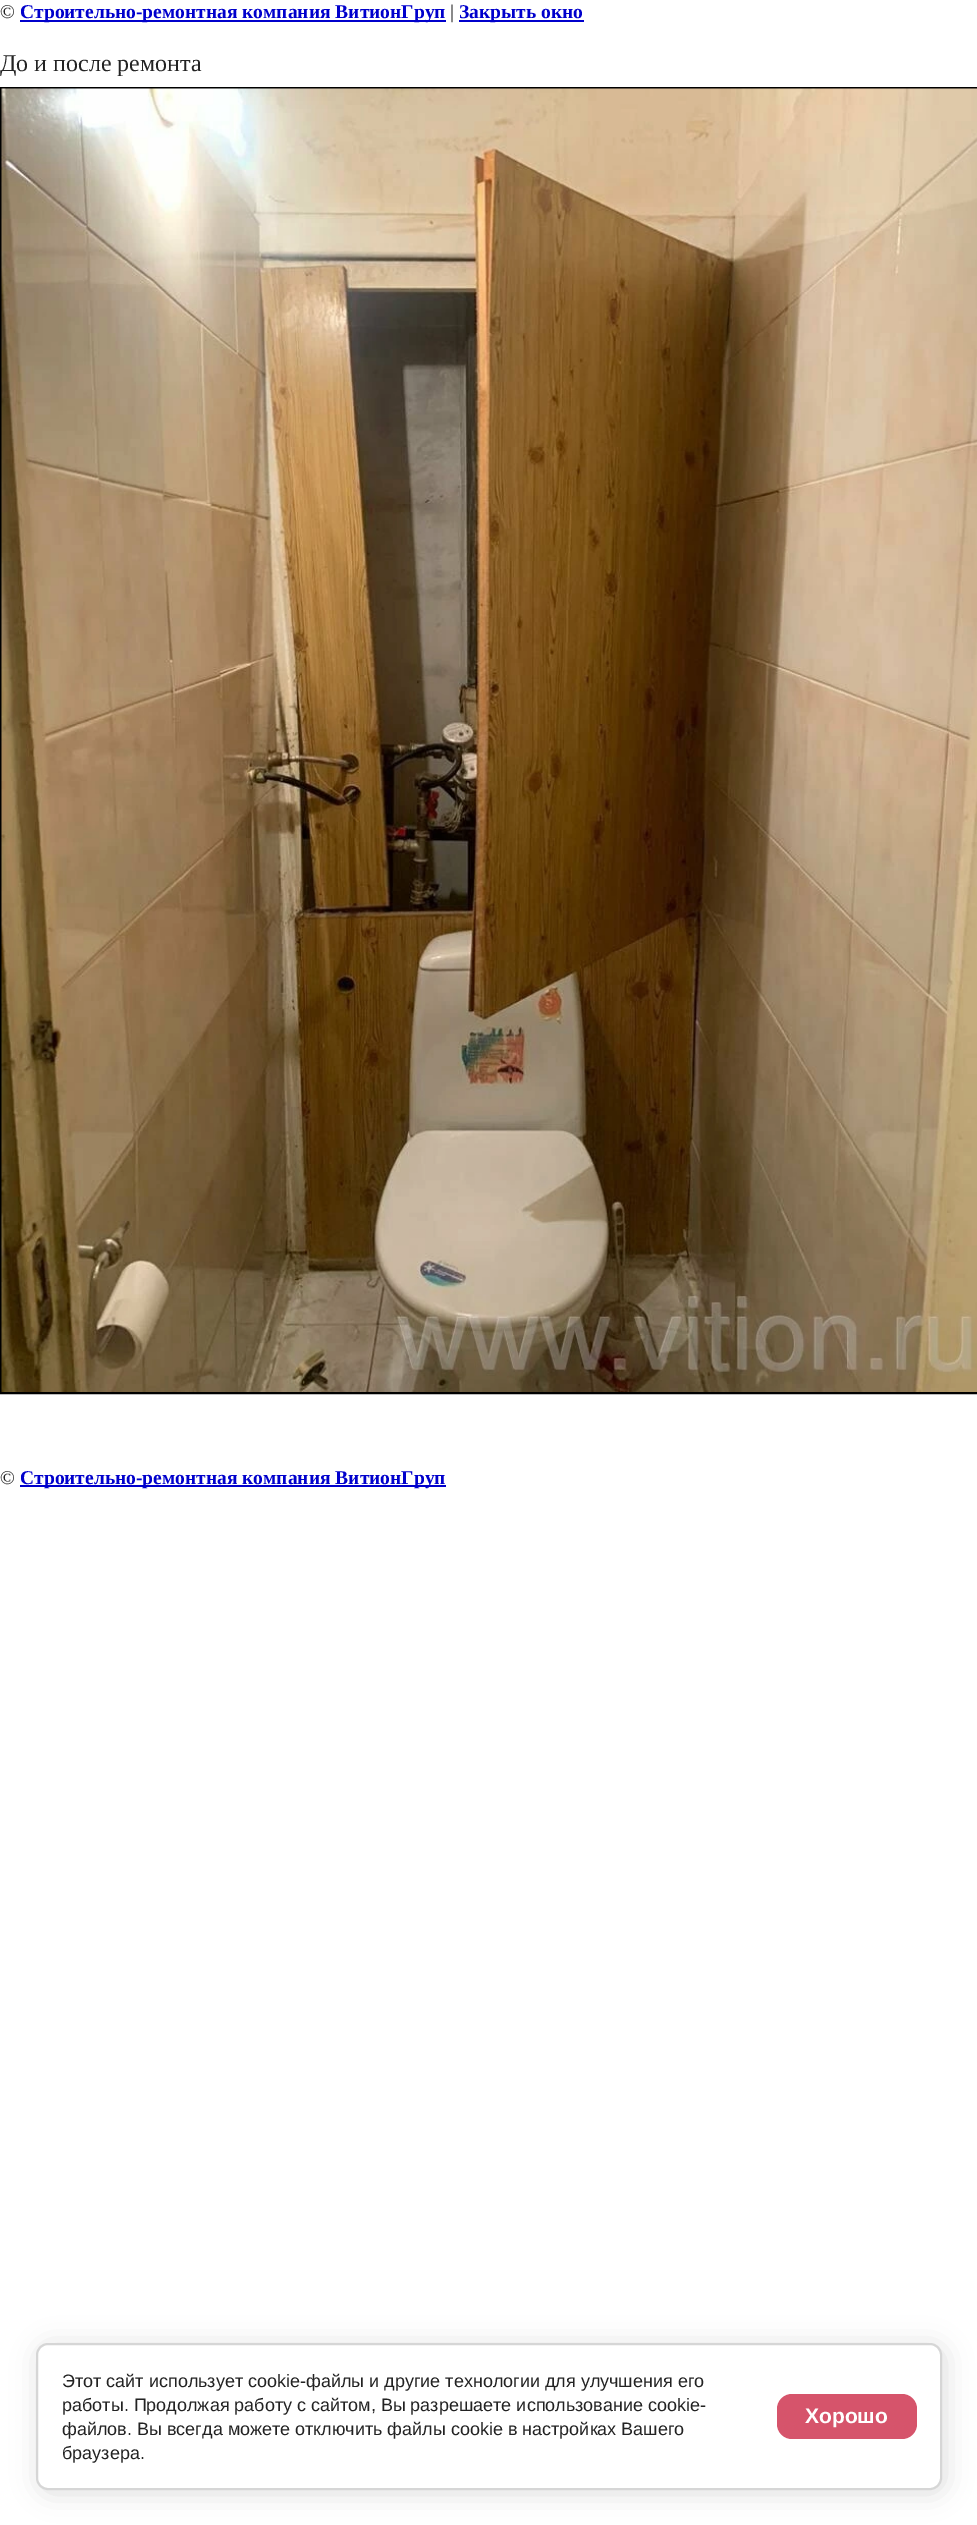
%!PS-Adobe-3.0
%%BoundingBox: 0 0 977 2525
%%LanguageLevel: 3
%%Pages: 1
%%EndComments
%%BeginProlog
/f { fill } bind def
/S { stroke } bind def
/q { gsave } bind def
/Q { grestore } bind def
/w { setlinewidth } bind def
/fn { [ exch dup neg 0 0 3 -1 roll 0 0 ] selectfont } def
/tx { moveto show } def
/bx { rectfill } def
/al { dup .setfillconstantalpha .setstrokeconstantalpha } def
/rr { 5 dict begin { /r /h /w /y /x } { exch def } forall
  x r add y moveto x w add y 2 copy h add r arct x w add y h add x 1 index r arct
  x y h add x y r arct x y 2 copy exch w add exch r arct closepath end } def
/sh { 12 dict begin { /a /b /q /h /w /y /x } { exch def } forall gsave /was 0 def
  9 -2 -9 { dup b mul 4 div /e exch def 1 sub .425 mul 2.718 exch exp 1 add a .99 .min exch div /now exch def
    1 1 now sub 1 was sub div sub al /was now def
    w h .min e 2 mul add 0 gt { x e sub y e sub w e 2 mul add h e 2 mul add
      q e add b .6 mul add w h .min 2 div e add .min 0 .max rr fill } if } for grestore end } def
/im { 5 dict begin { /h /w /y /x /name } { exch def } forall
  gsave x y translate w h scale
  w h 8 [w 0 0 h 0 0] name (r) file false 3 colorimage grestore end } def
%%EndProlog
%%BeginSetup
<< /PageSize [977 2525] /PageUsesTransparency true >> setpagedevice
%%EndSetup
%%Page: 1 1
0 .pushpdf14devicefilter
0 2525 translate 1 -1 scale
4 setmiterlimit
1 setgray
0 0 977 2525 bx
/LiberationSerif-Regular 19.5 fn
0.137 setgray
(©) 0 18 tx
0 0 0.8 setrgbcolor
20 20 426 2 bx
/LiberationSerif-Bold 19.5 fn
(Строительно-ремонтная компания ВитионГруп) 20 18 tx
/LiberationSerif-Regular 19.5 fn
0.137 setgray
(|) 450 18 tx
0 0 0.8 setrgbcolor
459 20 125 2 bx
/LiberationSerif-Bold 19.5 fn
(Закрыть окно) 459 18 tx
/LiberationSerif-Regular 24 fn
0.137 setgray
(До и после ремонта) 0 71 tx
0 setgray
2 w
1 88 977 1305 rectstroke
(image0.raw) 1 88 976 1304 im
/LiberationSerif-Regular 19.5 fn
0.137 setgray
(©) 0 1484 tx
0 0 0.8 setrgbcolor
20 1485 426 2 bx
/LiberationSerif-Bold 19.5 fn
(Строительно-ремонтная компания ВитионГруп) 20 1484 tx
0 setgray
39 2346 906 147 12 13.5 0.14 sh
1 setgray
37 2344 904 145 11 rr q f Q
0.839 setgray
S
/LiberationSans-Regular 18 fn
0.137 setgray
(Этот сайт использует cookie-файлы и другие технологии для улучшения его) 62 2387 tx
(работы. Продолжая работу с сайтом, Вы разрешаете использование cookie-) 62 2411 tx
(файлов. Вы всегда можете отключить файлы cookie в настройках Вашего) 62 2435 tx
(браузера.) 62 2459 tx
0.839 0.329 0.42 setrgbcolor
777 2394 140 45 15 rr f
/LiberationSans-Bold 21 fn
1 setgray
(Хорошо) 805 2423 tx
.poppdf14devicefilter showpage
%%EOF
